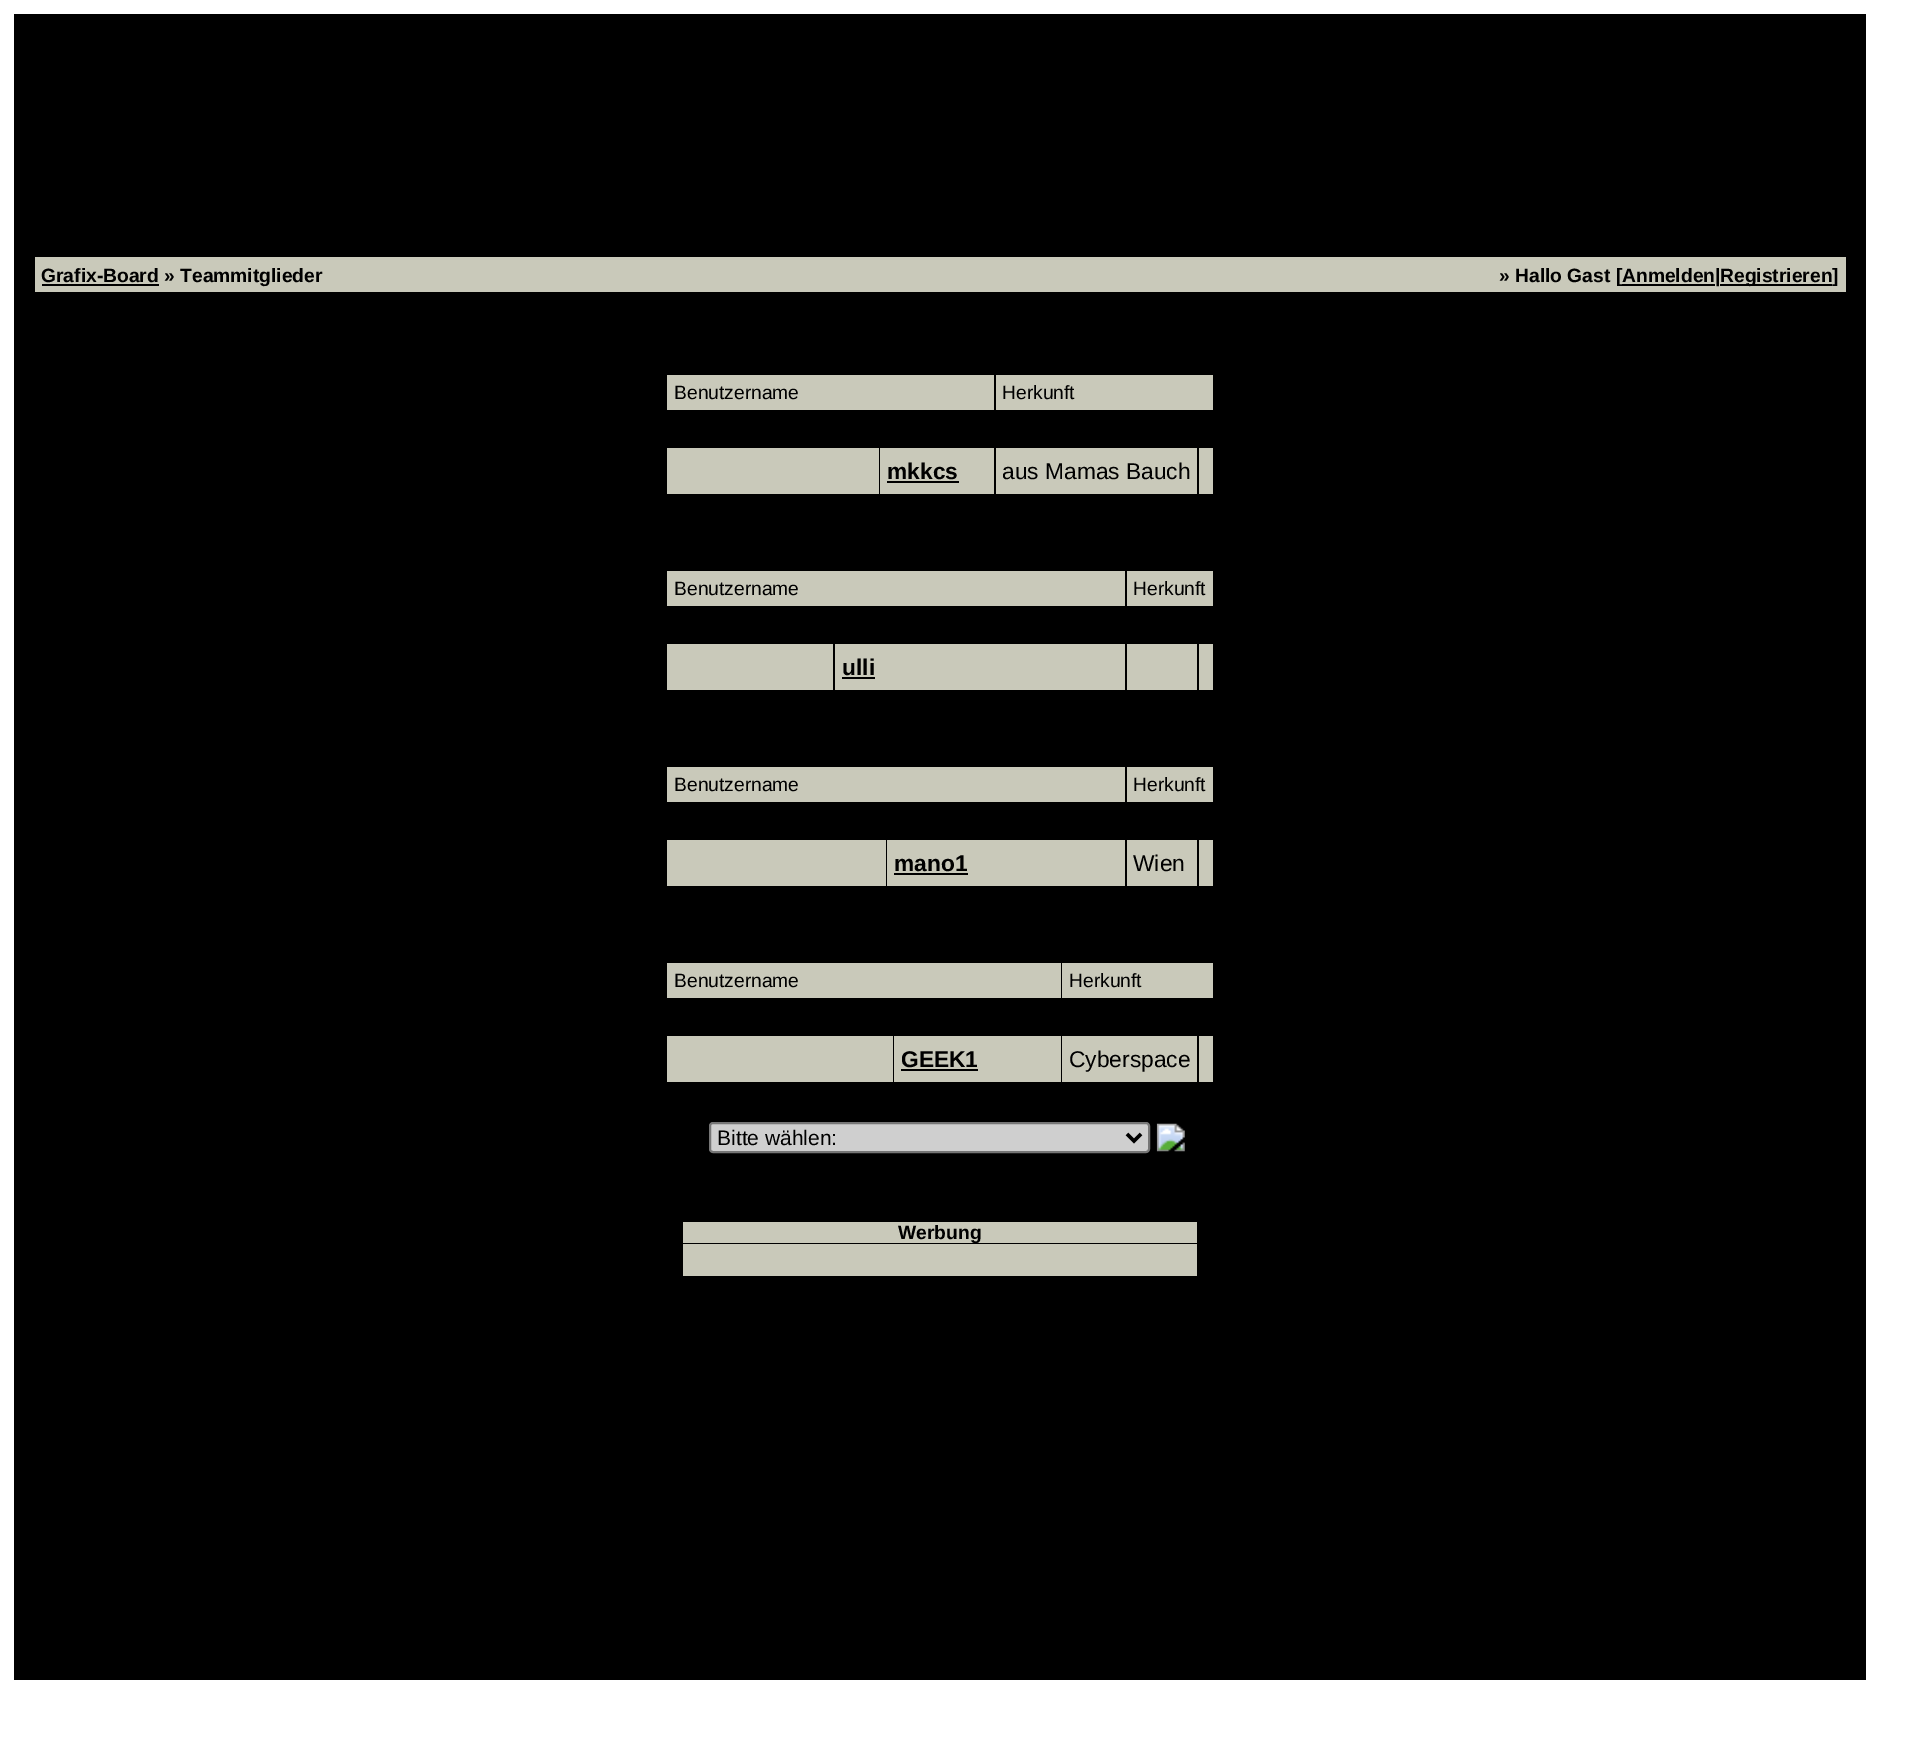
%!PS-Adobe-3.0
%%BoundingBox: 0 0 1918 1756
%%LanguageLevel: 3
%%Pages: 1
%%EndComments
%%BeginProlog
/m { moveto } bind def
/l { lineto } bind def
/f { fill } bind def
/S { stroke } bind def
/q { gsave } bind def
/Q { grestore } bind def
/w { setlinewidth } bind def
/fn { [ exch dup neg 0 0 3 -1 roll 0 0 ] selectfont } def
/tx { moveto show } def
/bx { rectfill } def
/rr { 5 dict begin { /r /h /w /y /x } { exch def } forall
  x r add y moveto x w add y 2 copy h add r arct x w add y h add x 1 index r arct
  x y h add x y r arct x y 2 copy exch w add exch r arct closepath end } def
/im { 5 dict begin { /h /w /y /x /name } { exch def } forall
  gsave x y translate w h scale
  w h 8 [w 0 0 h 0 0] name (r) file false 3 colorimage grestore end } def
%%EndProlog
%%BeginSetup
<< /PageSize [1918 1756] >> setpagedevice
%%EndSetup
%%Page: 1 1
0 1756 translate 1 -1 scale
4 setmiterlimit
1 setgray
0 0 1918 1756 bx
0 setgray
14 14 1852 1666 bx
0.788 0.788 0.729 setrgbcolor
35 257 1811 35 bx
0 setgray
42 284 117 2 bx
/LiberationSans-Bold 19.25 fn
(Grafix-Board » Teammitglieder) 41 282 tx
(» Hallo Gast [Anmelden|) 1499 282 tx
1622 284 93 2 bx
1720 284 112 2 bx
(Registrieren]) 1720 282 tx
0.788 0.788 0.729 setrgbcolor
667 375 327 35 bx
/LiberationSans-Regular 19.25 fn
0 setgray
(Benutzername) 674 399 tx
0.788 0.788 0.729 setrgbcolor
996 375 217 35 bx
0 setgray
(Herkunft) 1002 399 tx
0.788 0.788 0.729 setrgbcolor
667 448 212 46 bx
880 448 114 46 bx
/LiberationSans-Bold 22.75 fn
0 setgray
(mkkcs) 887 479 tx
887 481 72 2 bx
0.788 0.788 0.729 setrgbcolor
996 448 201 46 bx
/LiberationSans-Regular 22.75 fn
0 setgray
(aus Mamas Bauch) 1002 479 tx
0.788 0.788 0.729 setrgbcolor
1199 448 14 46 bx
667 571 458 35 bx
/LiberationSans-Regular 19.25 fn
0 setgray
(Benutzername) 674 595 tx
0.788 0.788 0.729 setrgbcolor
1127 571 86 35 bx
0 setgray
(Herkunft) 1133 595 tx
0.788 0.788 0.729 setrgbcolor
667 644 166 46 bx
835 644 290 46 bx
/LiberationSans-Bold 22.75 fn
0 setgray
(ulli) 842 675 tx
842 677 33 2 bx
0.788 0.788 0.729 setrgbcolor
1127 644 70 46 bx
1199 644 14 46 bx
667 767 458 35 bx
/LiberationSans-Regular 19.25 fn
0 setgray
(Benutzername) 674 791 tx
0.788 0.788 0.729 setrgbcolor
1127 767 86 35 bx
0 setgray
(Herkunft) 1133 791 tx
0.788 0.788 0.729 setrgbcolor
667 840 219 46 bx
887 840 238 46 bx
/LiberationSans-Bold 22.75 fn
0 setgray
(mano1) 894 871 tx
894 873 74 2 bx
0.788 0.788 0.729 setrgbcolor
1127 840 70 46 bx
/LiberationSans-Regular 22.75 fn
0 setgray
(Wien) 1133 871 tx
0.788 0.788 0.729 setrgbcolor
1199 840 14 46 bx
667 963 394 35 bx
/LiberationSans-Regular 19.25 fn
0 setgray
(Benutzername) 674 987 tx
0.788 0.788 0.729 setrgbcolor
1062 963 151 35 bx
0 setgray
(Herkunft) 1069 987 tx
0.788 0.788 0.729 setrgbcolor
667 1036 226 46 bx
894 1036 167 46 bx
/LiberationSans-Bold 22.75 fn
0 setgray
(GEEK1) 901 1067 tx
901 1069 77 2 bx
0.788 0.788 0.729 setrgbcolor
1062 1036 135 46 bx
/LiberationSans-Regular 22.75 fn
0 setgray
(Cyberspace) 1069 1067 tx
0.788 0.788 0.729 setrgbcolor
1199 1036 14 46 bx
0.812 setgray
710 1123 439 29 3 rr q f Q
0.463 setgray
2 w
S
0 setgray
3.5 w
1127 1134 m 1134 1141 l 1141 1134 l S
/LiberationSans-Regular 21 fn
(Bitte wählen:) 717 1145 tx
(image0.raw) 1156 1123 29 29 im
0.788 0.788 0.729 setrgbcolor
683 1222 514 21 bx
/LiberationSans-Bold 19.25 fn
0 setgray
(Werbung) 898 1239 tx
0.788 0.788 0.729 setrgbcolor
683 1244 514 32 bx
showpage
%%EOF
